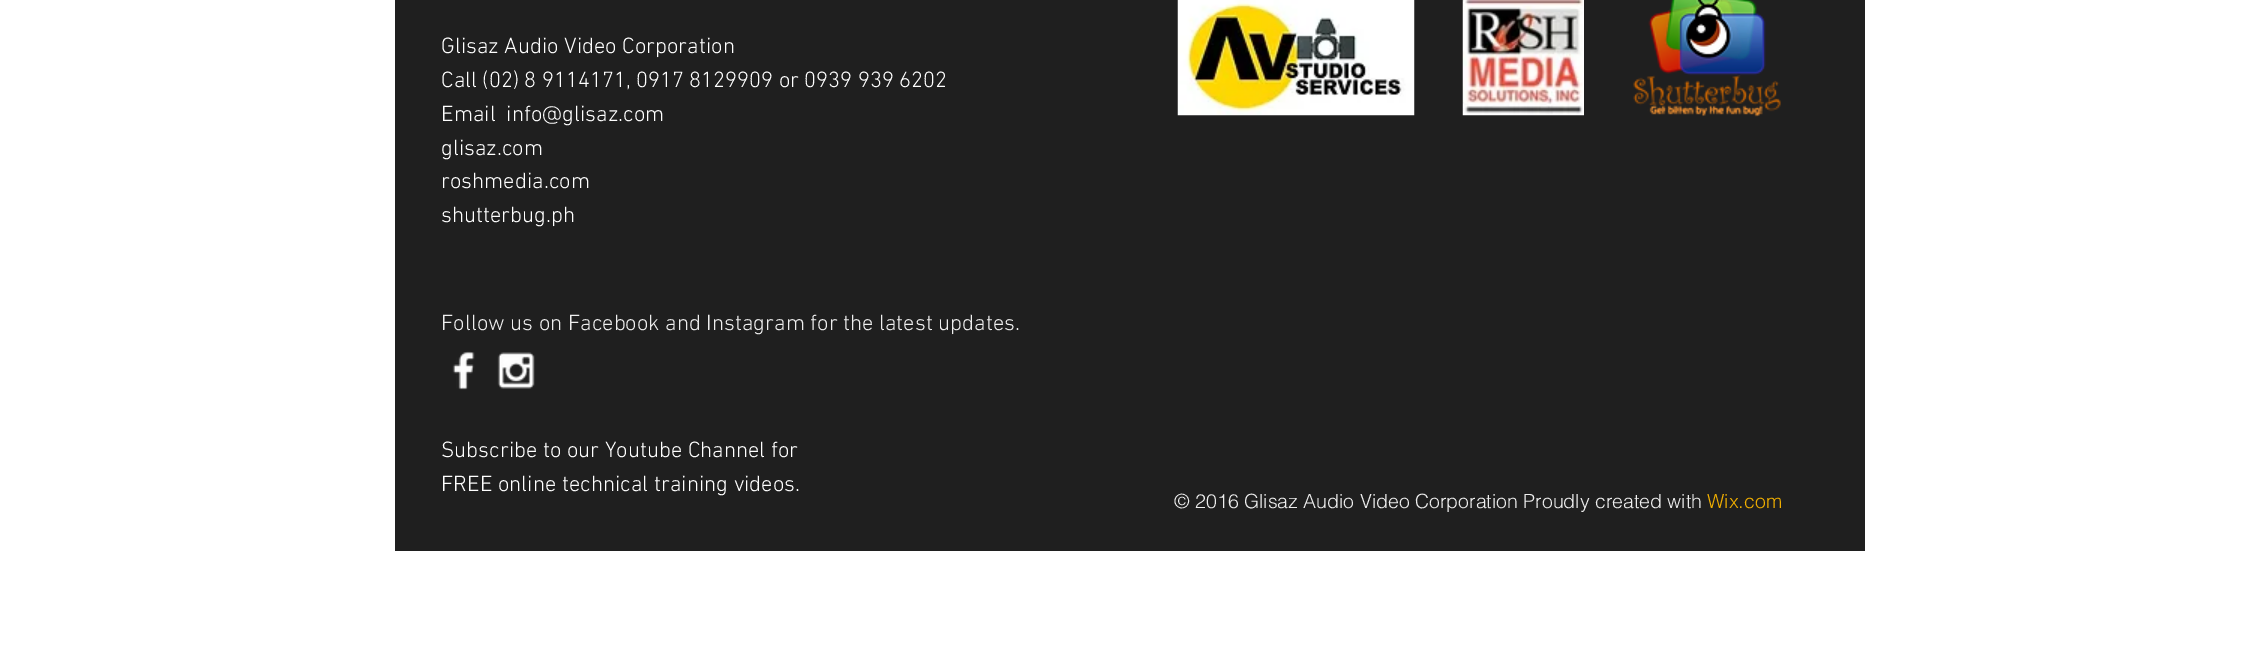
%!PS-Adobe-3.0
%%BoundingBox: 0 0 2256 654
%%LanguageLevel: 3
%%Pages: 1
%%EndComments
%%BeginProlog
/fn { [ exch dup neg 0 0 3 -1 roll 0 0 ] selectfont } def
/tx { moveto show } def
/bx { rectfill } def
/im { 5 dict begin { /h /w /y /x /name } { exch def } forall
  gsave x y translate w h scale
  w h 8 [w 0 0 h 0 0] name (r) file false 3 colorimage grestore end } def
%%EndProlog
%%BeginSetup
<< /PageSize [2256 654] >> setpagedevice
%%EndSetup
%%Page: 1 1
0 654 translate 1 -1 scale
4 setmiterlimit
1 setgray
0 0 2256 654 bx
0.122 setgray
395 0 1470 551 bx
/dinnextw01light-Light 22.5 fn
1 setgray
(Glisaz Audio Video Corporation) 441 53 tx
(Call \(02\) 8 9114171, 0917 8129909 or 0939 939 6202) 441 87 tx
(Email  info@glisaz.com) 441 121 tx
(glisaz.com) 441 155 tx
(roshmedia.com) 441 188 tx
(shutterbug.ph) 441 222 tx
(image0.raw) 1177 0 238 116 im
(image1.raw) 1462 0 122 116 im
(image2.raw) 1633 0 148 117 im
0.933 setgray
(Follow us on Facebook and Instagram for the latest updates.) 441 330 tx
(image3.raw) 452 351 23 39 im
(image4.raw) 497 352 38 37 im
1 setgray
(Subscribe to our Youtube Channel for) 441 457 tx
(FREE online technical training videos.) 441 491 tx
/helvetica-Light 19.5 fn
0.933 setgray
(© 2016 Glisaz Audio Video Corporation Proudly created with) 1174 508 tx
0.941 0.682 0 setrgbcolor
(Wix.com) 1707 508 tx
showpage
%%EOF
